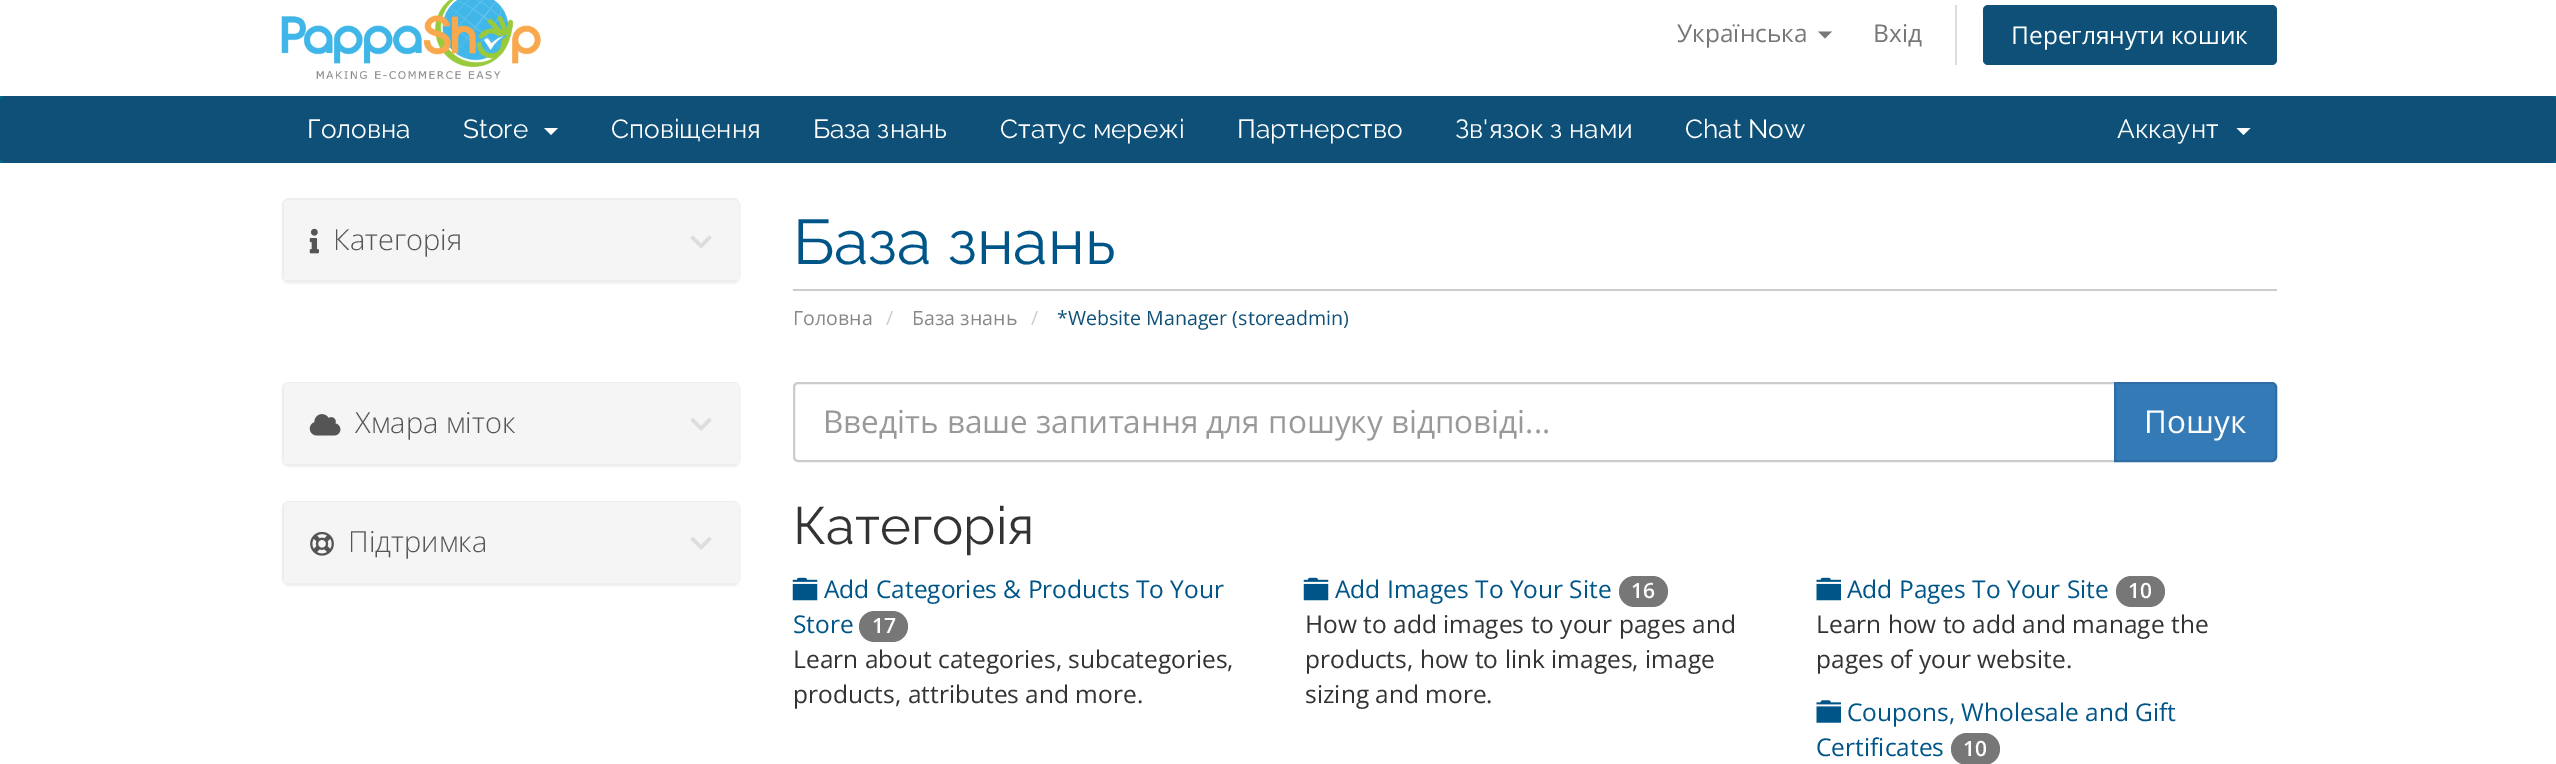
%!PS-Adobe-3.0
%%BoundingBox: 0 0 2556 764
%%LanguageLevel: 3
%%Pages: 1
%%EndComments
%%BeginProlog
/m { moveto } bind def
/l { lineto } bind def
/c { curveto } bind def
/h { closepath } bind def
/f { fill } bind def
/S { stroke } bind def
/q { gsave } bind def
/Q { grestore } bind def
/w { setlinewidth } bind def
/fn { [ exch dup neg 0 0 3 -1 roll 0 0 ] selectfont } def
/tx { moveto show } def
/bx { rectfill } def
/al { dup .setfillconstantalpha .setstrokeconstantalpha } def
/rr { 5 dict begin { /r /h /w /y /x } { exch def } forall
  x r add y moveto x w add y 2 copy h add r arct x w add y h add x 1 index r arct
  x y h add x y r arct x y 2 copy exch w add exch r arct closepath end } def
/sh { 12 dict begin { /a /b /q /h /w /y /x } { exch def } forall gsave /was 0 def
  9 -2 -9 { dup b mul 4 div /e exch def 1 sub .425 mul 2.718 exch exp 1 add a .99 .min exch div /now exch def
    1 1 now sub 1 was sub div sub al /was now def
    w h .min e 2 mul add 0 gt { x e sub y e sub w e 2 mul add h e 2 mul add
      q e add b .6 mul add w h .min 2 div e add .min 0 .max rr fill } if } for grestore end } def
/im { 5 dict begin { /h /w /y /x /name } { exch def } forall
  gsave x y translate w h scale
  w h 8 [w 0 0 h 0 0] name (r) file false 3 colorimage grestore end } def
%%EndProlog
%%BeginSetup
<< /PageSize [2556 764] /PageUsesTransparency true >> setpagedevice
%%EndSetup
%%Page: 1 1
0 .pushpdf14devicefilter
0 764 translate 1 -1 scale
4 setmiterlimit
1 setgray
0 0 2556 764 bx
(image0.raw) 281 0 260 79 im
/OpenSans-Regular 24.5 fn
0.467 setgray
(Українська) 1677 42 tx
1818 31.5 m 1832 31.5 l 1825 38.5 l h f
(Вхід) 1873 42 tx
0.867 setgray
1955 5 2 60 bx
0.055 0.314 0.467 setrgbcolor
1983 5 294 60 5 rr f
1 setgray
(Переглянути кошик) 2011 44 tx
0 0.4 0.529 setrgbcolor
0 96 2556 67 bx
0.055 0.314 0.467 setrgbcolor
0 96 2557 67 7 rr f
/Raleway-Regular 26.25 fn
1 setgray
(Головна) 307 138 tx
(Store) 463 138 tx
544 128 m 558 128 l 551 135 l h f
(Сповіщення) 611 138 tx
(База знань) 813 138 tx
(Статус мережі) 1000 138 tx
(Партнерство) 1237 138 tx
(Зв'язок з нами) 1455 138 tx
(Chat Now) 1685 138 tx
(Аккаунт) 2117 138 tx
2236.5 128 m 2250.5 128 l 2243.5 135 l h f
0 setgray
282 200 458 84 7 1 0.05 sh
0.933 setgray
2 w
283 199 456 82 6 rr S
0.961 setgray
289 200 m 734 200 l 737 200 739 202 739 205 c 739 280 l 284 280 l 284 205 l 284 202 286 200 289 200 c h f
(image1.raw) 309 228 10 26 im
/OpenSans-Light 29 fn
0.333 setgray
(Категорія) 333 250 tx
(image2.raw) 690 235 22 14 im
0.8 setgray
793 289 1484 2 bx
/Raleway-Regular 63 fn
0 0.333 0.533 setrgbcolor
(База знань) 793 264 tx
/OpenSans-Regular 19.6 fn
0.533 setgray
(Головна) 793 325 tx
0.8 setgray
(/) 886 325 tx
0.533 setgray
(База знань) 912 325 tx
0.8 setgray
(/) 1031 325 tx
0.055 0.314 0.467 setrgbcolor
(*Website Manager \(storeadmin\)) 1057 325 tx
0 setgray
282 383 458 84 7 1 0.05 sh
0.933 setgray
283 383 456 82 6 rr S
0.961 setgray
289 383 m 734 383 l 737 383 739 385 739 388 c 739 464 l 284 464 l 284 388 l 284 385 286 383 289 383 c h f
(image3.raw) 309 414 32 22 im
/OpenSans-Light 29 fn
0.333 setgray
(Хмара міток) 355 433 tx
(image4.raw) 690 418 22 13 im
0 setgray
282 502 458 84 7 1 0.05 sh
0.933 setgray
283 502 456 82 6 rr S
0.961 setgray
289 502 m 734 502 l 737 502 739 504 739 507 c 739 583 l 284 583 l 284 507 l 284 504 286 502 289 502 c h f
(image5.raw) 310 531 24 25 im
0.333 setgray
(Підтримка) 348 552 tx
(image4.raw) 690 537 22 13 im
0.8 setgray
798 383 m 2115 383 l 2115 461 l 798 461 l 796 461 794 459 794 457 c 794 387 l 794 385 796 383 798 383 c h S
/OpenSans-Regular 31.5 fn
0.6 setgray
(Введіть ваше запитання для пошуку відповіді...) 823 433 tx
0.2 0.478 0.718 setrgbcolor
2115 383 m 2272 383 l 2274 383 2276 385 2276 387 c 2276 457 l 2276 459 2274 461 2272 461 c 2115 461 l h q f Q
0.18 0.427 0.643 setrgbcolor
S
1 setgray
(Пошук) 2144 433 tx
/Raleway-Regular 52.5 fn
0.2 setgray
(Категорія) 793 544 tx
(image6.raw) 792 577 26 24 im
/OpenSans-Regular 24.5 fn
0 0.333 0.533 setrgbcolor
(Add Categories & Products To Your) 824 598 tx
(Store) 793 633 tx
0.467 setgray
859 611 49 31 15.5 rr f
/OpenSans-SemiBold 21 fn
1 setgray
(17) 872 633 tx
/OpenSans-Regular 24.5 fn
0.2 setgray
(Learn about categories, subcategories,) 793 668 tx
(products, attributes and more.) 793 703 tx
(image6.raw) 1303 577 26 24 im
0 0.333 0.533 setrgbcolor
(Add Images To Your Site) 1335 598 tx
0.467 setgray
1619 576 49 31 15.5 rr f
/OpenSans-SemiBold 21 fn
1 setgray
(16) 1631 598 tx
/OpenSans-Regular 24.5 fn
0.2 setgray
(How to add images to your pages and) 1305 633 tx
(products, how to link images, image) 1305 668 tx
(sizing and more.) 1305 703 tx
(image7.raw) 1816 577 25 24 im
0 0.333 0.533 setrgbcolor
(Add Pages To Your Site) 1847 598 tx
0.467 setgray
2116 576 49 31 15.5 rr f
/OpenSans-SemiBold 21 fn
1 setgray
(10) 2128 598 tx
/OpenSans-Regular 24.5 fn
0.2 setgray
(Learn how to add and manage the) 1816 633 tx
(pages of your website.) 1816 668 tx
(image8.raw) 1816 700 25 23 im
0 0.333 0.533 setrgbcolor
(Coupons, Wholesale and Gift) 1847 721 tx
(Certificates) 1816 756 tx
0.467 setgray
1951 733 49 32 16 rr f
/OpenSans-SemiBold 21 fn
1 setgray
(10) 1963 756 tx
.poppdf14devicefilter showpage
%%EOF
